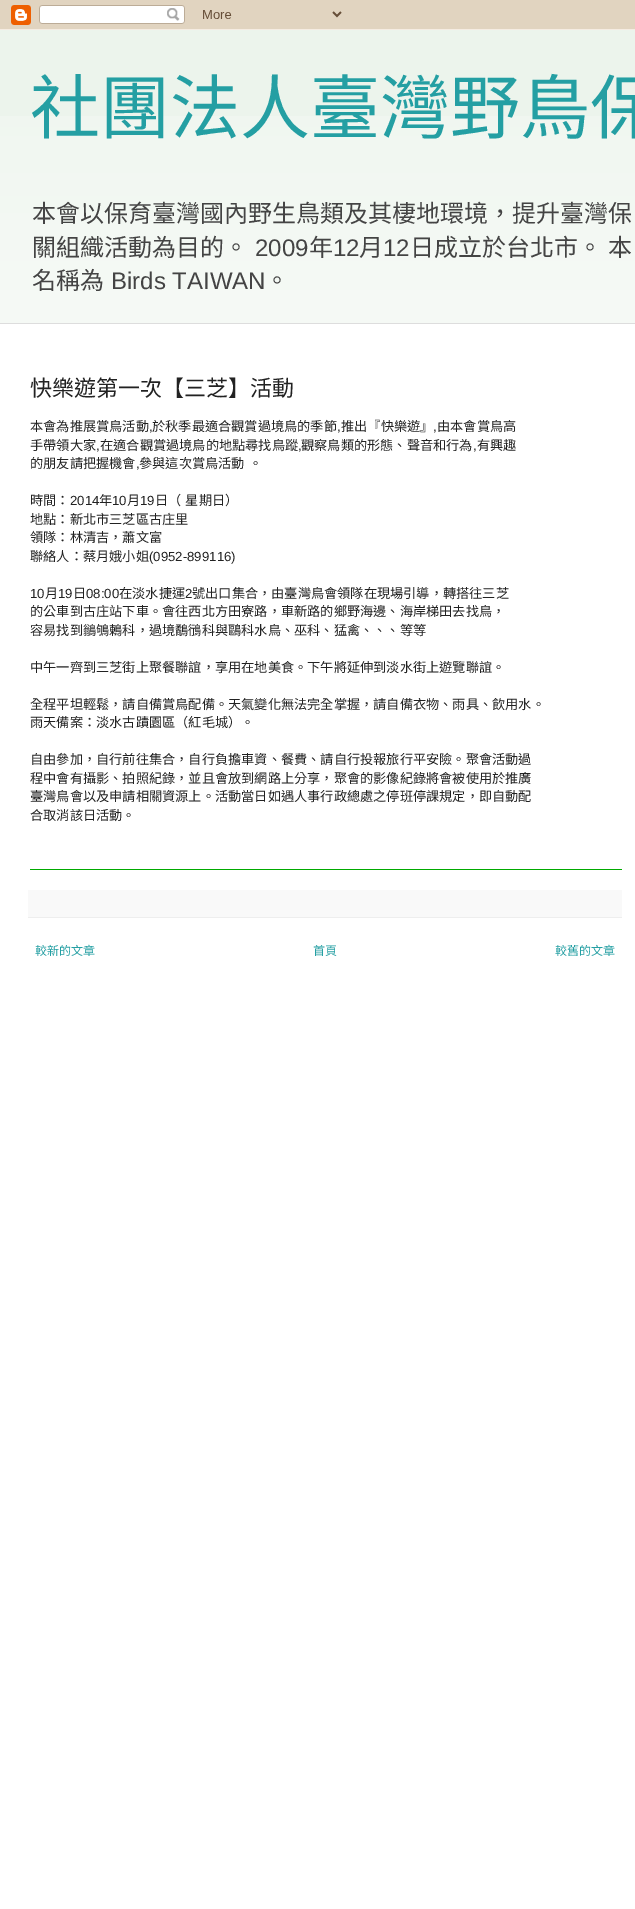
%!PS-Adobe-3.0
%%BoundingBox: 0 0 635 1909
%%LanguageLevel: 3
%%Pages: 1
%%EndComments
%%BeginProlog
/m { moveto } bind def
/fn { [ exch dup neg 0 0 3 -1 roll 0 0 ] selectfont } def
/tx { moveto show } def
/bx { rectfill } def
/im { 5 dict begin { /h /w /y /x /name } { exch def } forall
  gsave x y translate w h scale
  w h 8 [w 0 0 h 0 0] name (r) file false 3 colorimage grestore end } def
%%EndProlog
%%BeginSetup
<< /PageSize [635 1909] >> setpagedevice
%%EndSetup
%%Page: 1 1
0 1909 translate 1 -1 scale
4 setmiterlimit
0.925 0.957 0.925 setrgbcolor
0 0 635 1909 bx
(image0.raw) 0 0 635 30 im
(image1.raw) 0 116 635 207 im
/NotoSansCJKTC-Regular 70 fn
0.141 0.624 0.639 setrgbcolor
(社團法人臺灣野鳥保) 30 133 tx
/NotoSansCJKTC-Regular 24 fn
0.267 setgray
(本會以保育臺灣國內野生鳥類及其棲地環境，提升臺灣保) 32 222 tx
(關組織活動為目的。) 32 256 tx
/LiberationSans-Regular 24 fn
(2009) 255 256 tx
/NotoSansCJKTC-Regular 24 fn
(年) 309 256 tx
/LiberationSans-Regular 24 fn
(12) 333 256 tx
/NotoSansCJKTC-Regular 24 fn
(月) 359 256 tx
/LiberationSans-Regular 24 fn
(12) 383 256 tx
/NotoSansCJKTC-Regular 24 fn
410 256 m 1 0 32 (日成立於台北市。 本) widthshow
(名稱為) 32 289 tx
/LiberationSans-Regular 24 fn
(Birds TAIWAN) 111 289 tx
/NotoSansCJKTC-Regular 24 fn
(。) 265 289 tx
1 setgray
0 324 635 1585 bx
0.867 setgray
0 323 635 1 bx
/NotoSansCJKTC-Regular 22 fn
0.133 setgray
(快樂遊第一次【三芝】活動) 30 396 tx
/NotoSansCJKTC-Regular 13.2 fn
(本會為推展賞鳥活動) 30 431 tx
/LiberationSans-Regular 13.2 fn
(,) 149 431 tx
/NotoSansCJKTC-Regular 13.2 fn
(於秋季最適合觀賞過境鳥的季節) 152 431 tx
/LiberationSans-Regular 13.2 fn
(,) 337 431 tx
/NotoSansCJKTC-Regular 13.2 fn
(推出『快樂遊』) 341 431 tx
/LiberationSans-Regular 13.2 fn
(,) 433 431 tx
/NotoSansCJKTC-Regular 13.2 fn
(由本會賞鳥高) 437 431 tx
(手帶領大家) 30 450 tx
/LiberationSans-Regular 13.2 fn
(,) 96 450 tx
/NotoSansCJKTC-Regular 13.2 fn
(在適合觀賞過境鳥的地點尋找鳥蹤) 100 450 tx
/LiberationSans-Regular 13.2 fn
(,) 298 450 tx
/NotoSansCJKTC-Regular 13.2 fn
(觀察鳥類的形態、聲音和行為) 301 450 tx
/LiberationSans-Regular 13.2 fn
(,) 473 450 tx
/NotoSansCJKTC-Regular 13.2 fn
(有興趣) 477 450 tx
(的朋友請把握機會) 30 468 tx
/LiberationSans-Regular 13.2 fn
(,) 136 468 tx
/NotoSansCJKTC-Regular 13.2 fn
139 468 m 1 0 32 (參與這次賞鳥活動 。) widthshow
(時間：) 30 505 tx
/LiberationSans-Regular 13.2 fn
(2014) 70 505 tx
/NotoSansCJKTC-Regular 13.2 fn
(年) 99 505 tx
/LiberationSans-Regular 13.2 fn
(10) 112 505 tx
/NotoSansCJKTC-Regular 13.2 fn
(月) 127 505 tx
/LiberationSans-Regular 13.2 fn
(19) 140 505 tx
/NotoSansCJKTC-Regular 13.2 fn
155 505 m 1 0 32 (日（ 星期日）) widthshow
(地點：新北市三芝區古庄里) 30 524 tx
(領隊：林清吉，蕭文富) 30 542 tx
(聯絡人：蔡月娥小姐) 30 561 tx
/LiberationSans-Regular 13.2 fn
(\(0952-899116\)) 149 561 tx
(10) 30 598 tx
/NotoSansCJKTC-Regular 13.2 fn
(月) 45 598 tx
/LiberationSans-Regular 13.2 fn
(19) 58 598 tx
/NotoSansCJKTC-Regular 13.2 fn
(日) 73 598 tx
/LiberationSans-Regular 13.2 fn
(08:00) 86 598 tx
/NotoSansCJKTC-Regular 13.2 fn
(在淡水捷運) 119 598 tx
/LiberationSans-Regular 13.2 fn
(2) 185 598 tx
/NotoSansCJKTC-Regular 13.2 fn
(號出口集合，由臺灣鳥會領隊在現場引導，轉搭往三芝) 192 598 tx
(的公車到古庄站下車。會往西北方田寮路，車新路的鄉野海邊、海岸梯田去找鳥，) 30 616 tx
(容易找到鶲鴝鶇科，過境鷸鴴科與鷗科水鳥、巫科、猛禽、、、等等) 30 635 tx
(中午一齊到三芝街上聚餐聯誼，享用在地美食。下午將延伸到淡水街上遊覽聯誼。) 30 672 tx
(全程平坦輕鬆，請自備賞鳥配備。天氣變化無法完全掌握，請自備衣物、雨具、飲用水。) 30 709 tx
(雨天備案：淡水古蹟園區（紅毛城）。) 30 727 tx
(自由參加，自行前往集合，自行負擔車資、餐費、請自行投報旅行平安險。聚會活動過) 30 764 tx
(程中會有攝影、拍照紀錄，並且會放到網路上分享，聚會的影像紀錄將會被使用於推廣) 30 783 tx
(臺灣鳥會以及申請相關資源上。活動當日如遇人事行政總處之停班停課規定，即自動配) 30 801 tx
(合取消該日活動。) 30 820 tx
0 0.667 0 setrgbcolor
30 869 592 1 bx
0.976 setgray
28 890 594 27 bx
0.933 setgray
28 917 594 1 bx
/NotoSansCJKTC-Regular 12 fn
0.141 0.624 0.639 setrgbcolor
(較新的文章) 35 955 tx
(首頁) 313 955 tx
(較舊的文章) 555 955 tx
showpage
%%EOF
